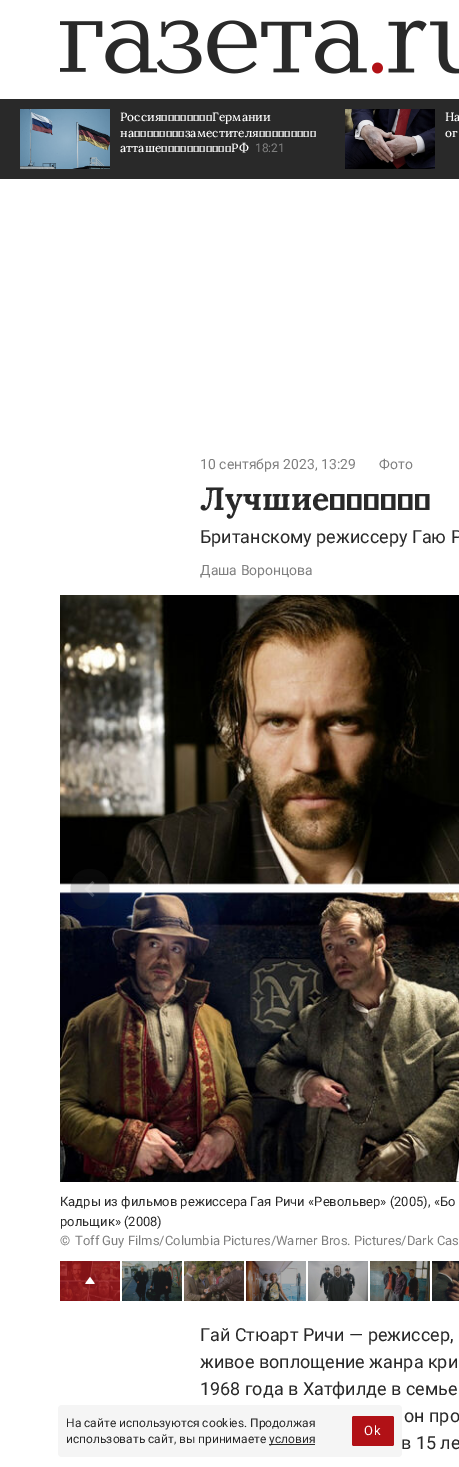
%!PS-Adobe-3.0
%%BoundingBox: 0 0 459 1467
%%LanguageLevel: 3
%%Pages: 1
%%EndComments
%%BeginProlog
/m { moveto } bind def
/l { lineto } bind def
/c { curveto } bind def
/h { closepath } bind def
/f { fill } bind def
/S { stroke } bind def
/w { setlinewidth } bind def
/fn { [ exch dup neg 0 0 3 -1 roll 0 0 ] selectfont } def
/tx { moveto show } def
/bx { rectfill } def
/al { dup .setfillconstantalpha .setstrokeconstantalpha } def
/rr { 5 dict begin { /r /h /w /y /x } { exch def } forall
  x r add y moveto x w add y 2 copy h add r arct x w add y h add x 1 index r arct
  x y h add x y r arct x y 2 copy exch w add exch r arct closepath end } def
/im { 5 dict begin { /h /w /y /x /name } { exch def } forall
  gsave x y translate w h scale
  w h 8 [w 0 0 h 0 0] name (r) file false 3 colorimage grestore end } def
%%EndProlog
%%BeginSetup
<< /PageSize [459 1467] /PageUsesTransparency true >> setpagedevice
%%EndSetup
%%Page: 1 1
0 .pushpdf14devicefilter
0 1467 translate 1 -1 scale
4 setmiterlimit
1 setgray
0 0 459 1467 bx
(image0.raw) 60 20 399 54 im
0.161 setgray
0 99 459 80 bx
(image1.raw) 20 109 90 60 im
/Lora-Medium 12 fn
1 setgray
(Россия ответит Германии) 120 121 tx
(на высылку заместителя военного) 120 137 tx
(атташе посольства РФ) 120 152 tx
/Roboto-Regular 12 fn
0.498 setgray
(18:21) 255 152 tx
(image2.raw) 345 109 90 60 im
/Lora-Medium 12 fn
1 setgray
(На) 445 121 tx
(ог) 445 137 tx
/Roboto-Regular 14 fn
0.498 setgray
(10 сентября 2023, 13:29) 200 469 tx
(Фото) 379 469 tx
/Lora-Bold 32 fn
0.161 setgray
(Лучшие фильм) 200 510 tx
/Roboto-Regular 18 fn
(Британскому режиссеру Гаю Р) 200 543 tx
/Roboto-Regular 14 fn
0.498 setgray
(Даша Воронцова) 200 575 tx
(image3.raw) 60 595 399 587 im
0.2 al
0.161 setgray
90 869 m 64 869 64 909 90 909 c 116 909 116 869 90 869 c h f
1 setgray
2.5 w
93.5 882 m 86.5 889 l 93.5 896 l S
/Roboto-Regular 13 fn
1 al
0.161 setgray
(Кадры из фильмов режиссера Гая Ричи «Револьвер» \(2005\), «Бо) 60 1206 tx
(рольщик» \(2008\)) 60 1226 tx
0.498 setgray
(©) 60 1245 tx
(Toff Guy Films/Columbia Pictures/Warner Bros. Pictures/Dark Cas) 75 1245 tx
0.545 0.106 0.122 setrgbcolor
60 1261 60 40 bx
(image4.raw) 60 1261 60 40 im
(image5.raw) 85 1277 10 7 im
0.2 setgray
122 1261 60 40 bx
(image6.raw) 122 1261 60 40 im
184 1261 60 40 bx
(image7.raw) 184 1261 60 40 im
246 1261 60 40 bx
(image8.raw) 246 1261 60 40 im
308 1261 60 40 bx
(image9.raw) 308 1261 60 40 im
370 1261 60 40 bx
(image10.raw) 370 1261 60 40 im
432 1261 27 40 bx
(image11.raw) 432 1261 27 40 im
/Roboto-Regular 18 fn
0.161 setgray
(Гай Стюарт Ричи — режиссер,) 200 1341 tx
(живое воплощение жанра кри) 200 1368 tx
(1968 года в Хатфилде в семье) 200 1395 tx
(он про) 404 1422 tx
(в 15 ле) 401 1449 tx
0.961 setgray
58 1405 344 52 4 rr f
/Roboto-Regular 12 fn
0.161 setgray
(На сайте используются cookies. Продолжая) 66 1427 tx
(использовать сайт, вы принимаете) 66 1443 tx
269 1444 46 1 bx
(условия) 269 1443 tx
0.694 0.067 0.086 setrgbcolor
352 1416 42 30 2 rr f
/Roboto-Regular 13 fn
1 setgray
364 1435 m 1 0 (Ok) ashow
.poppdf14devicefilter showpage
%%EOF
